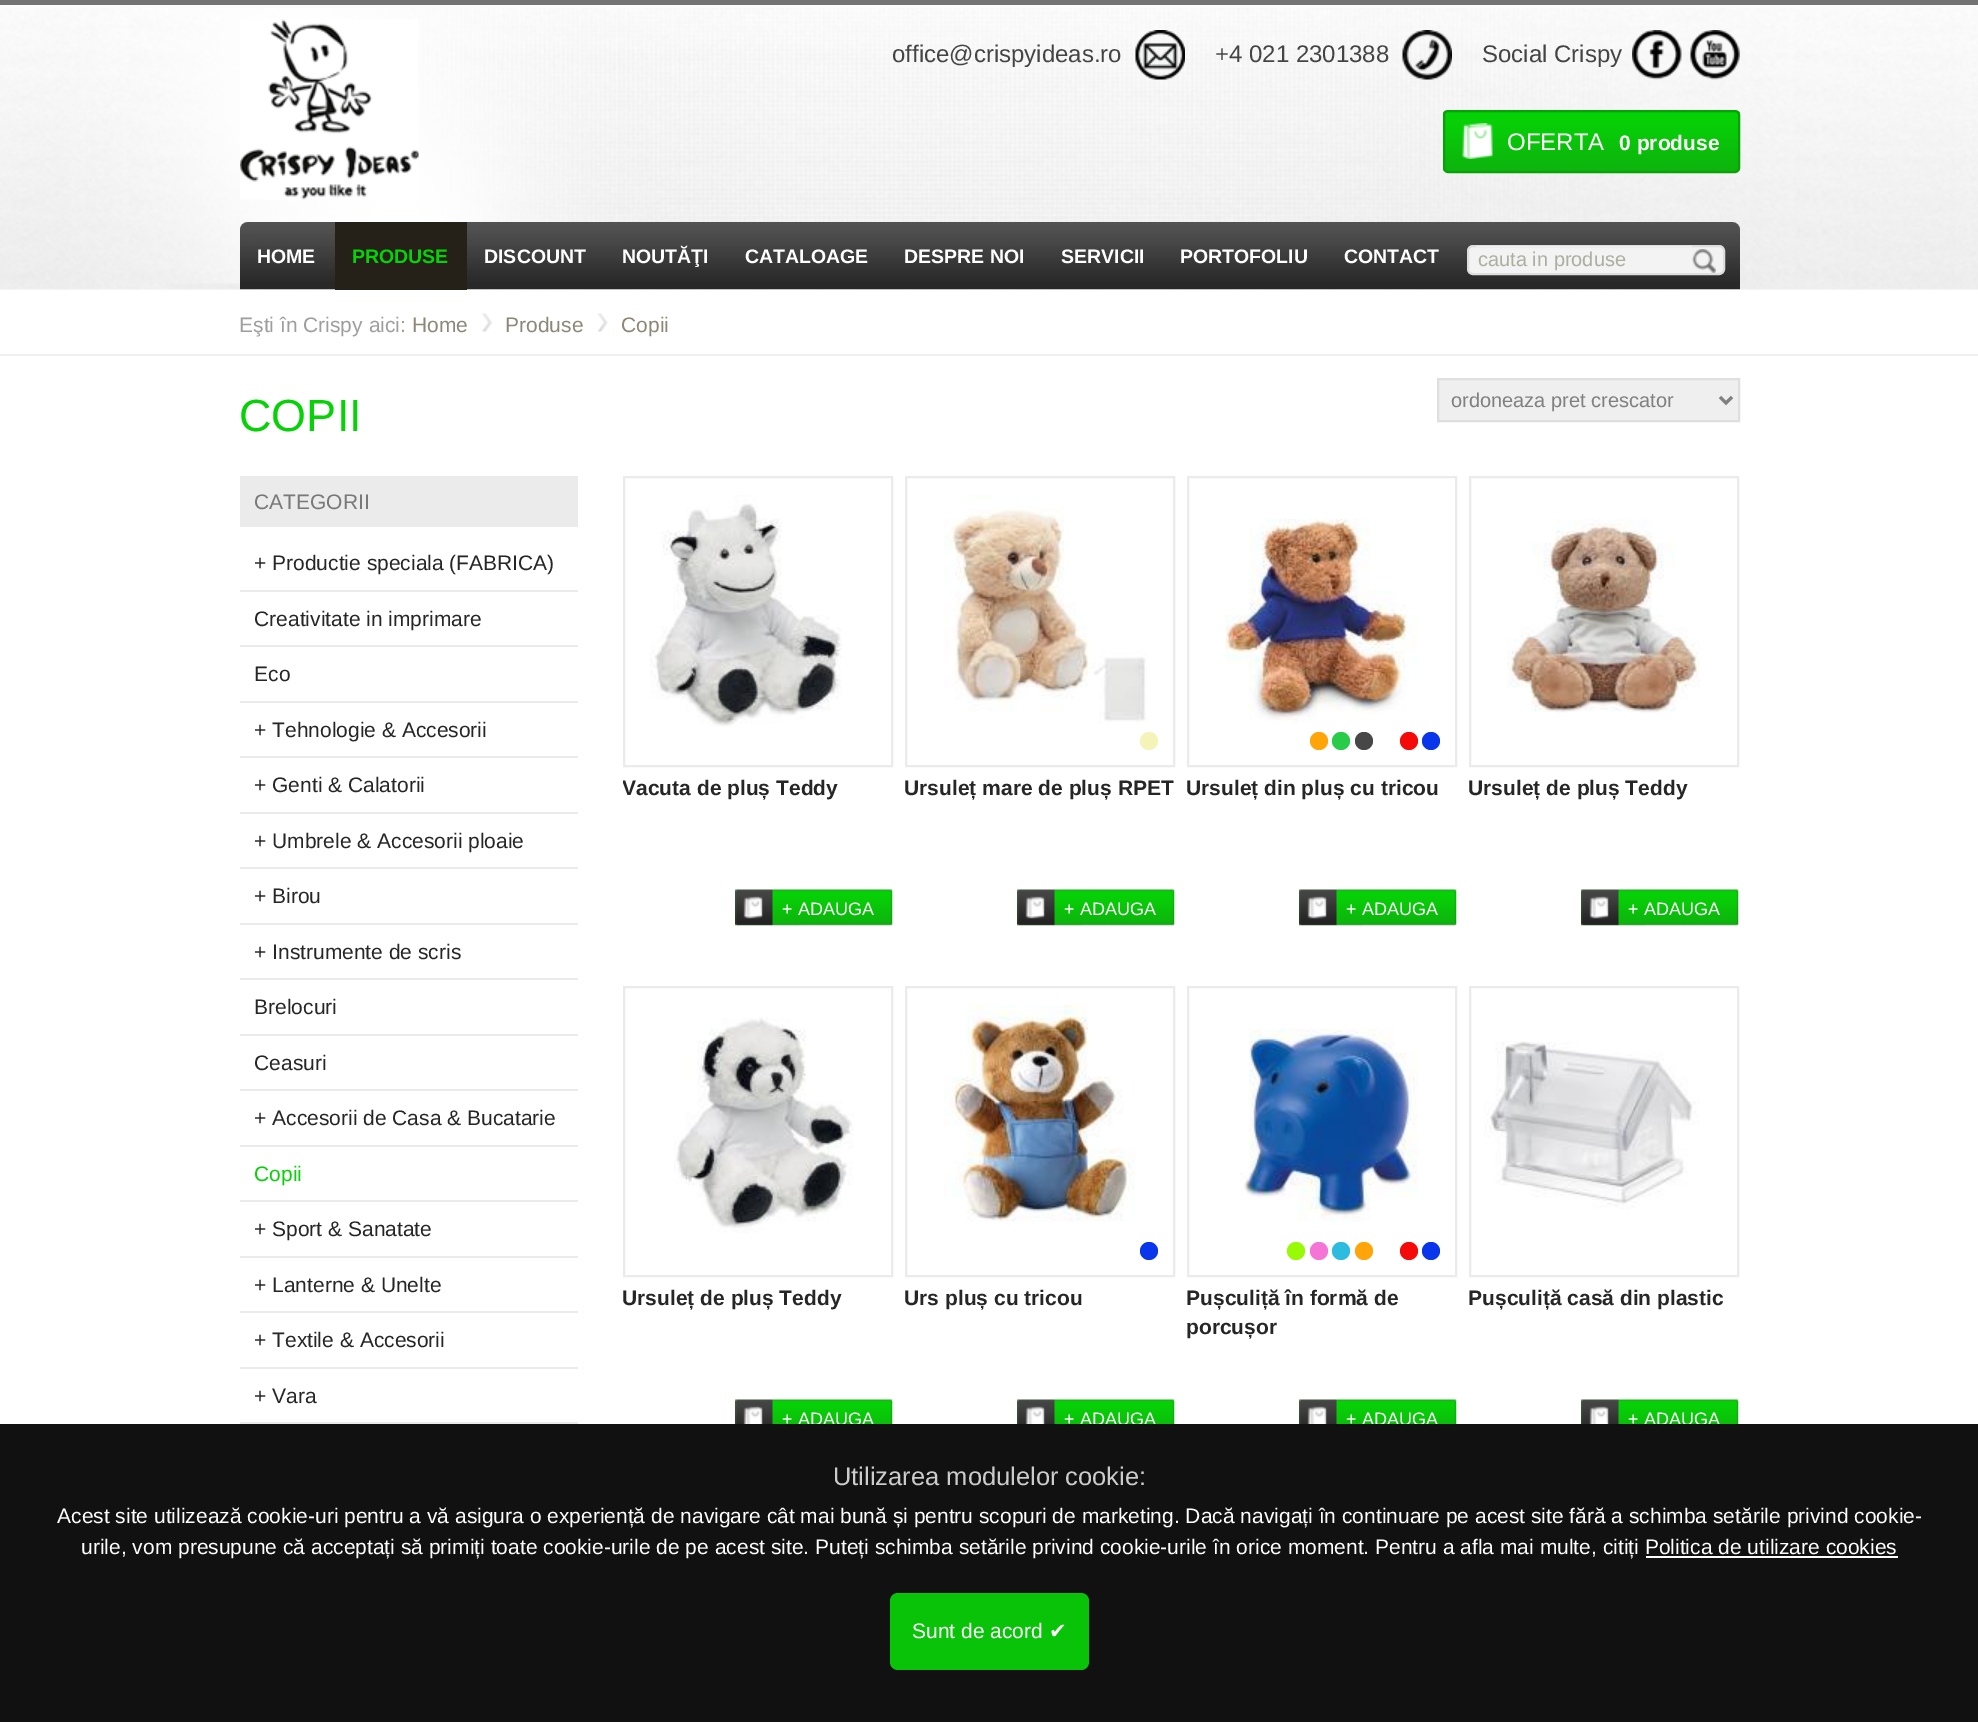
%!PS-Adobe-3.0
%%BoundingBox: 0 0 1978 1722
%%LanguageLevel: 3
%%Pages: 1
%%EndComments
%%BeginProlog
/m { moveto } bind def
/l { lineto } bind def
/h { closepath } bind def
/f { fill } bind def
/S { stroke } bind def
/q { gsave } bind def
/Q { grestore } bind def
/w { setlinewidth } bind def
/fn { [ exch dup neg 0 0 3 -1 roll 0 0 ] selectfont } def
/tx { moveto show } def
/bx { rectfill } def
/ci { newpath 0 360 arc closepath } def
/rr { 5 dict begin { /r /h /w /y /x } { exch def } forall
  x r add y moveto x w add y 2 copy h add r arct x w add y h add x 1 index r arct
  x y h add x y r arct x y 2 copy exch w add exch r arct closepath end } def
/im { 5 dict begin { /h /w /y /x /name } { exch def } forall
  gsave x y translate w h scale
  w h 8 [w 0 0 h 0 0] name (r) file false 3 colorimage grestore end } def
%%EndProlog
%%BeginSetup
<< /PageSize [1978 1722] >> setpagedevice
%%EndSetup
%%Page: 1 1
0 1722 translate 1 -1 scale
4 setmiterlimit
1 setgray
0 0 1978 1722 bx
0.984 setgray
0 5 1978 285 bx
(image0.raw) 0 8 1978 282 im
0.451 setgray
0 0 1978 5 bx
(image1.raw) 240 19 179 181 im
(image2.raw) 1135 30 50 50 im
/Arimo-Regular 24 fn
0.267 setgray
(office@crispyideas.ro) 892 62 tx
(image3.raw) 1402 30 50 50 im
(+4 021 2301388) 1215 62 tx
(Social Crispy) 1482 62 tx
(image4.raw) 1632 30 50 50 im
(image5.raw) 1690 30 50 50 im
(image6.raw) 1443 111 297 60 im
0.031 0.631 0.031 setrgbcolor
2 w
1444 111 295 61 4 rr S
(image7.raw) 1462 123 31 36 im
1 setgray
(OFERTA) 1507 150 tx
/Arimo-Bold 21 fn
(0 produse) 1619 150 tx
(image8.raw) 240 222 1500 68 im
/Arimo-Bold 19.5 fn
(HOME) 257 263 tx
0.145 0.129 0.094 setrgbcolor
335 222 132 68 bx
0.027 0.82 0.027 setrgbcolor
(PRODUSE) 352 263 tx
1 setgray
(DISCOUNT) 484 263 tx
(NOUTĂŢI) 622 263 tx
(CATALOAGE) 745 263 tx
(DESPRE NOI) 904 263 tx
(SERVICII) 1061 263 tx
(PORTOFOLIU) 1180 263 tx
(CONTACT) 1344 263 tx
0.953 setgray
1468 246 256 28 5 rr q f Q
0.871 setgray
S
0.953 setgray
1476 246 216 1 bx
/LiberationSans-Regular 20 fn
0.675 0.682 0.624 setrgbcolor
(cauta in produse) 1478 266 tx
(image9.raw) 1692 249 24 24 im
0.941 setgray
0 354 1978 2 bx
/Arimo-Regular 21 fn
0.62 setgray
(Eşti în Crispy aici:) 239 332 tx
0.553 0.529 0.467 setrgbcolor
(Home) 412 332 tx
(image10.raw) 481 313 11 19 im
(Produse) 505 332 tx
(image11.raw) 597 313 11 19 im
(Copii) 621 332 tx
/Arimo-Regular 45 fn
0.027 0.82 0.027 setrgbcolor
(COPII) 239 431 tx
0.937 setgray
1438 379 m 1739 379 l 1739 421 l 1438 421 l h q f Q
0.875 setgray
S
0.502 setgray
3 w
1720 397 m 1726 403 l 1732 397 l S
/LiberationSans-Regular 20 fn
(ordoneaza pret crescator) 1451 407 tx
0.922 setgray
240 476 338 51 bx
/Arimo-Regular 21 fn
0.475 setgray
(CATEGORII) 254 509 tx
0.922 setgray
240 590 338 2 bx
/LiberationSans-Regular 21 fn
0.149 setgray
(+) 254 570 tx
/Arimo-Regular 21 fn
(Productie speciala \(FABRICA\)) 272 570 tx
0.922 setgray
240 645 338 2 bx
0.149 setgray
(Creativitate in imprimare) 254 626 tx
0.922 setgray
240 701 338 2 bx
0.149 setgray
(Eco) 254 681 tx
0.922 setgray
240 756 338 2 bx
/LiberationSans-Regular 21 fn
0.149 setgray
(+) 254 737 tx
/Arimo-Regular 21 fn
(Tehnologie & Accesorii) 272 737 tx
0.922 setgray
240 812 338 2 bx
/LiberationSans-Regular 21 fn
0.149 setgray
(+) 254 792 tx
/Arimo-Regular 21 fn
(Genti & Calatorii) 272 792 tx
0.922 setgray
240 867 338 2 bx
/LiberationSans-Regular 21 fn
0.149 setgray
(+) 254 848 tx
/Arimo-Regular 21 fn
(Umbrele & Accesorii ploaie) 272 848 tx
0.922 setgray
240 923 338 2 bx
/LiberationSans-Regular 21 fn
0.149 setgray
(+) 254 903 tx
/Arimo-Regular 21 fn
(Birou) 272 903 tx
0.922 setgray
240 978 338 2 bx
/LiberationSans-Regular 21 fn
0.149 setgray
(+) 254 959 tx
/Arimo-Regular 21 fn
(Instrumente de scris) 272 959 tx
0.922 setgray
240 1034 338 2 bx
0.149 setgray
(Brelocuri) 254 1014 tx
0.922 setgray
240 1089 338 2 bx
0.149 setgray
(Ceasuri) 254 1070 tx
0.922 setgray
240 1145 338 2 bx
/LiberationSans-Regular 21 fn
0.149 setgray
(+) 254 1125 tx
/Arimo-Regular 21 fn
(Accesorii de Casa & Bucatarie) 272 1125 tx
0.922 setgray
240 1200 338 2 bx
0.027 0.82 0.027 setrgbcolor
(Copii) 254 1181 tx
0.922 setgray
240 1256 338 2 bx
/LiberationSans-Regular 21 fn
0.149 setgray
(+) 254 1236 tx
/Arimo-Regular 21 fn
(Sport & Sanatate) 272 1236 tx
0.922 setgray
240 1311 338 2 bx
/LiberationSans-Regular 21 fn
0.149 setgray
(+) 254 1292 tx
/Arimo-Regular 21 fn
(Lanterne & Unelte) 272 1292 tx
0.922 setgray
240 1367 338 2 bx
/LiberationSans-Regular 21 fn
0.149 setgray
(+) 254 1347 tx
/Arimo-Regular 21 fn
(Textile & Accesorii) 272 1347 tx
0.922 setgray
240 1422 338 2 bx
/LiberationSans-Regular 21 fn
0.149 setgray
(+) 254 1403 tx
/Arimo-Regular 21 fn
(Vara) 272 1403 tx
0.922 setgray
2 w
624 477 268 289 rectstroke
(image12.raw) 650 495 192 232 im
q
623 476 270 450 rectclip
/Arimo-Bold 21 fn
0.149 setgray
(Vacuta de pluș Teddy) 622 795 tx
Q
(image13.raw) 735 889 158 37 im
/Arimo-Regular 18 fn
1 setgray
(+ ADAUGA) 782 915 tx
0.922 setgray
906 477 268 289 rectstroke
(image14.raw) 944 495 203 228 im
0.961 0.957 0.722 setrgbcolor
1149 741 9 ci f
/Arimo-Bold 21 fn
0.149 setgray
(Ursuleț mare de pluș RPET) 904 795 tx
(image15.raw) 1017 889 158 37 im
/Arimo-Regular 18 fn
1 setgray
(+ ADAUGA) 1064 915 tx
0.922 setgray
1188 477 268 289 rectstroke
(image16.raw) 1224 518 194 205 im
1 0.647 0.039 setrgbcolor
1319 741 9 ci f
0.161 0.8 0.286 setrgbcolor
1341 741 9 ci f
0.278 setgray
1364 741 9 ci f
0.961 0.039 0.039 setrgbcolor
1409 741 9 ci f
0.035 0.212 0.922 setrgbcolor
1431 741 9 ci f
/Arimo-Bold 21 fn
0.149 setgray
(Ursuleț din pluș cu tricou) 1186 795 tx
(image15.raw) 1299 889 158 37 im
/Arimo-Regular 18 fn
1 setgray
(+ ADAUGA) 1346 915 tx
0.922 setgray
1470 477 268 289 rectstroke
(image17.raw) 1507 519 193 194 im
/Arimo-Bold 21 fn
0.149 setgray
(Ursuleț de pluș Teddy) 1468 795 tx
(image15.raw) 1581 889 158 37 im
/Arimo-Regular 18 fn
1 setgray
(+ ADAUGA) 1628 915 tx
0.922 setgray
624 987 268 289 rectstroke
(image18.raw) 674 1017 180 216 im
/Arimo-Bold 21 fn
0.149 setgray
(Ursuleț de pluș Teddy) 622 1305 tx
(image19.raw) 735 1399 158 25 im
/Arimo-Regular 18 fn
1 setgray
(+ ADAUGA) 782 1425 tx
0.922 setgray
906 987 268 289 rectstroke
(image20.raw) 944 1005 192 217 im
0.035 0.212 0.922 setrgbcolor
1149 1251 9 ci f
/Arimo-Bold 21 fn
0.149 setgray
(Urs pluș cu tricou) 904 1305 tx
(image21.raw) 1017 1399 158 25 im
/Arimo-Regular 18 fn
1 setgray
(+ ADAUGA) 1064 1425 tx
0.922 setgray
1188 987 268 289 rectstroke
(image22.raw) 1240 1028 178 194 im
0.596 0.98 0.02 setrgbcolor
1296 1251 9 ci f
0.961 0.459 0.843 setrgbcolor
1319 1251 9 ci f
0.176 0.737 0.878 setrgbcolor
1341 1251 9 ci f
1 0.647 0.039 setrgbcolor
1364 1251 9 ci f
0.961 0.039 0.039 setrgbcolor
1409 1251 9 ci f
0.035 0.212 0.922 setrgbcolor
1431 1251 9 ci f
/Arimo-Bold 21 fn
0.149 setgray
(Pușculiță în formă de) 1186 1305 tx
(porcușor) 1186 1334 tx
(image21.raw) 1299 1399 158 25 im
/Arimo-Regular 18 fn
1 setgray
(+ ADAUGA) 1346 1425 tx
0.922 setgray
1470 987 268 289 rectstroke
(image23.raw) 1484 1041 215 168 im
/Arimo-Bold 21 fn
0.149 setgray
(Pușculiță casă din plastic) 1468 1305 tx
(image21.raw) 1581 1399 158 25 im
/Arimo-Regular 18 fn
1 setgray
(+ ADAUGA) 1628 1425 tx
0.067 setgray
0 1424 1978 298 bx
/Arimo-Regular 25.5 fn
0.8 setgray
(Utilizarea modulelor cookie:) 833 1485 tx
/Arimo-Regular 21 fn
1 setgray
(Acest site utilizează cookie-uri pentru a vă asigura o experiență de navigare cât mai bună și pentru scopuri de marketing. Dacă navigați în continuare pe acest site fără a schimba setările privind cookie-) 57 1523 tx
(urile, vom presupune că acceptați să primiți toate cookie-urile de pe acest site. Puteți schimba setările privind cookie-urile în orice moment. Pentru a afla mai multe, citiți Politica de utilizare cookies) 81 1554 tx
1646 1556 252 2 bx
0.035 0.765 0.035 setrgbcolor
890 1593 199 77 8 rr f
1 setgray
(Sunt de acord) 912 1638 tx
/DejaVuSans-Regular 21 fn
(✔) 1049 1638 tx
showpage
%%EOF
